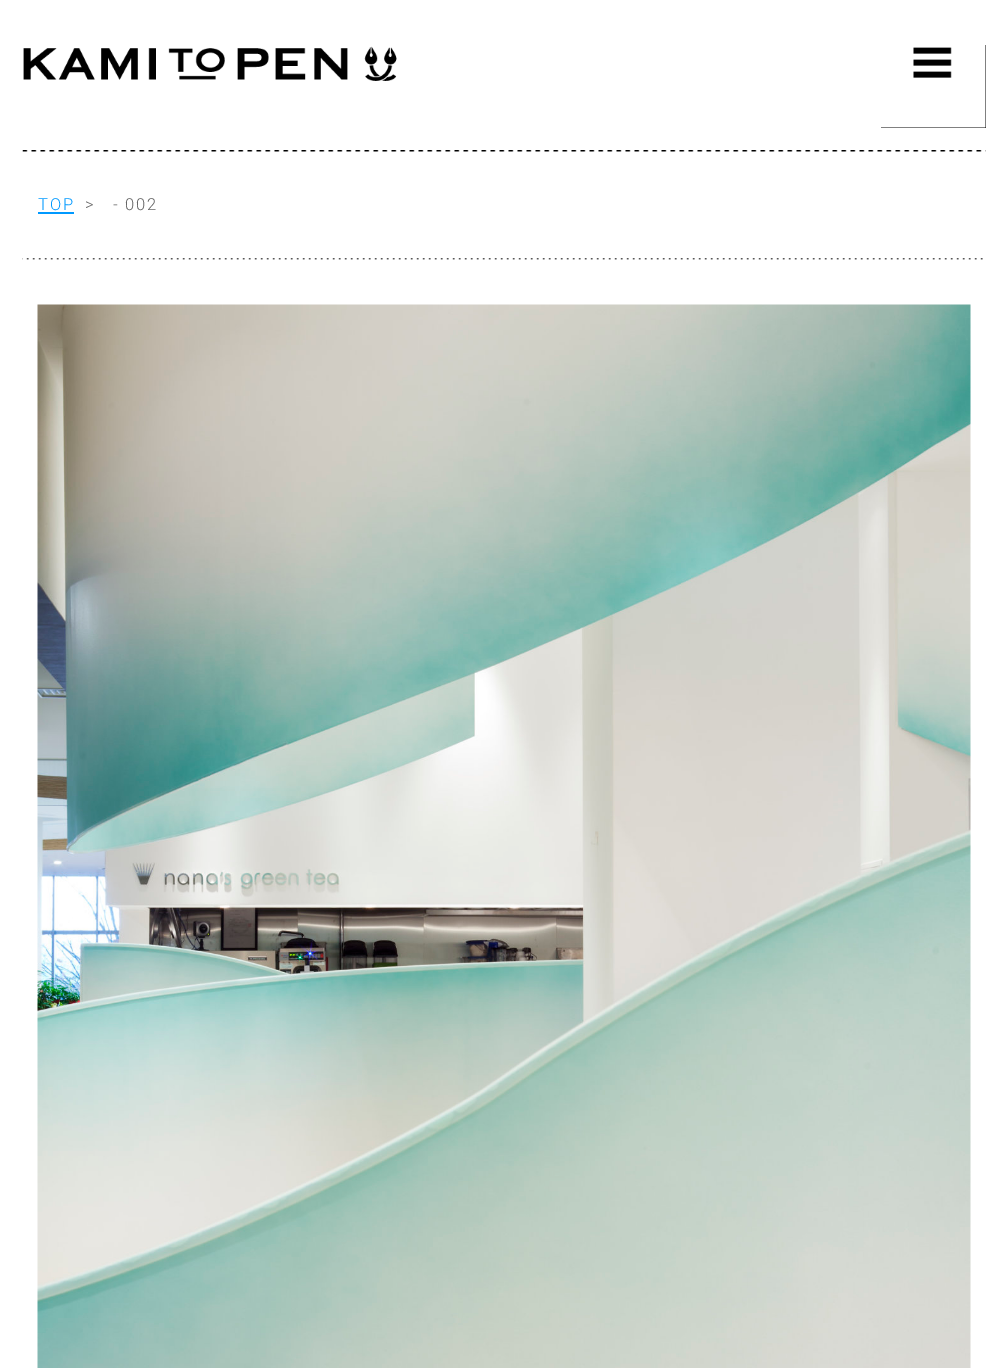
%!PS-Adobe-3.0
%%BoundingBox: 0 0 1008 1368
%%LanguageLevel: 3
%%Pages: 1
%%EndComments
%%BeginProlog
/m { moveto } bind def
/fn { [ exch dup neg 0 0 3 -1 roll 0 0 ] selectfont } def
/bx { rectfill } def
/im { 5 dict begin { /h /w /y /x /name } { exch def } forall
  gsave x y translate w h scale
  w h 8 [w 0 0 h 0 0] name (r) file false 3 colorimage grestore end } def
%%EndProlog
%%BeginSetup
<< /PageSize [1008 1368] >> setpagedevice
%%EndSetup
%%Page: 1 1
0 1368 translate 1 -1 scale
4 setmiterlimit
1 setgray
0 0 1008 1368 bx
(image0.raw) 23 46 374 35 im
0 setgray
881 45 105 83 bx
(image1.raw) 881 45 105 83 im
(image2.raw) 22 150 964 2 im
/Roboto-Light 16.5 fn
0 0.6 1 setrgbcolor
38 210 m 1.75 0 (TOP) ashow
38 212 36 2 bx
0.4 setgray
85 210 m 1.75 0 (>   - 002) ashow
(image3.raw) 22 258 961 2 im
(image4.raw) 37 304 934 1064 im
showpage
%%EOF
